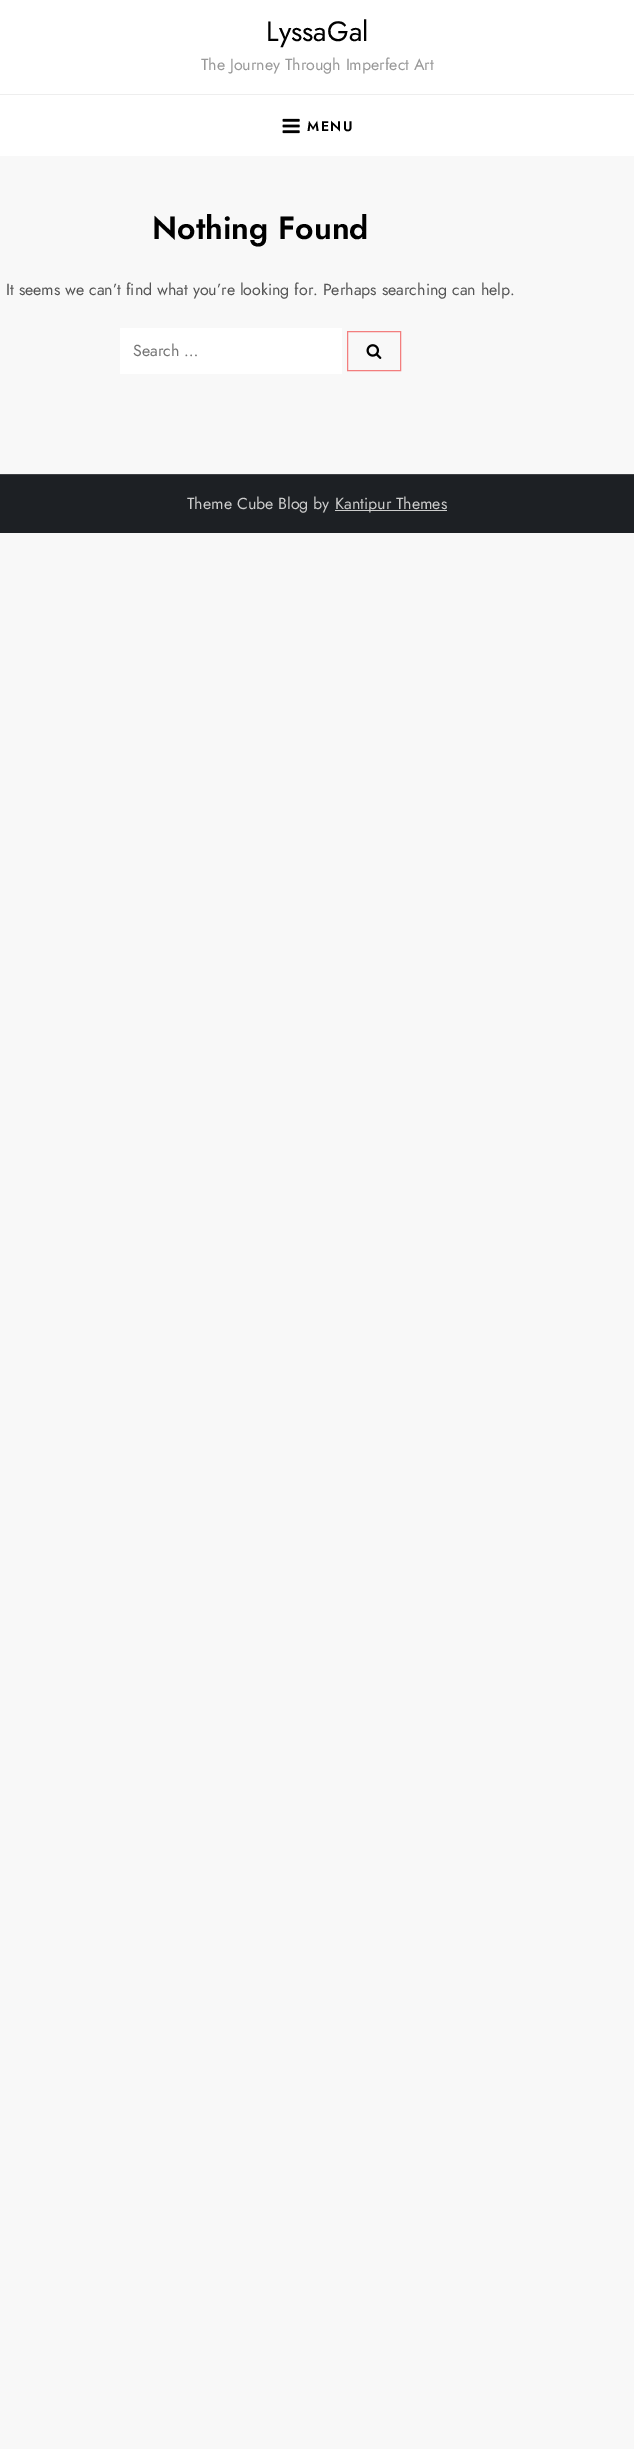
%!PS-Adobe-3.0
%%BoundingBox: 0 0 634 2449
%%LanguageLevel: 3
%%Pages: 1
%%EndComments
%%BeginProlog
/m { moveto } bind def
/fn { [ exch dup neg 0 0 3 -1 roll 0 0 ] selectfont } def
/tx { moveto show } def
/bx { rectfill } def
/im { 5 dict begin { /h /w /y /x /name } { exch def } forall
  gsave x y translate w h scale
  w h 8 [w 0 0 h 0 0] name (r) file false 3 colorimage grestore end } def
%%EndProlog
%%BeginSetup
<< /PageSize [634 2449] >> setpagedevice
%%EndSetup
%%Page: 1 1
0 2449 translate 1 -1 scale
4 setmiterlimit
0.973 setgray
0 0 634 2449 bx
1 setgray
0 0 634 156 bx
/Jost-Regular 28 fn
0 setgray
(LyssaGal) 266 41 tx
/Jost-Regular 16 fn
0.6 setgray
(The Journey Through Imperfect Art) 201 70 tx
0.933 setgray
0 94 634 1 bx
(image0.raw) 282 118 18 16 im
/Jost-SemiBold 14 fn
0 setgray
307 131 m 1.5 0 (MENU) ashow
/Jost-SemiBold 32 fn
(Nothing Found) 152 239 tx
/Jost-Regular 16 fn
0.333 setgray
(It seems we can’t find what you’re looking for. Perhaps searching can help.) 6 295 tx
1 setgray
120 328 222 46 bx
0.459 setgray
(Search …) 133 356 tx
0.953 0.494 0.494 setrgbcolor
347.5 331.5 53 39 rectstroke
(image1.raw) 366 344 16 15 im
0.114 0.125 0.141 setrgbcolor
0 475 634 58 bx
0.247 0.255 0.271 setrgbcolor
0 474 634 1 bx
0.8 setgray
(Theme Cube Blog by) 187 509 tx
335 510 112 1 bx
(Kantipur Themes) 335 509 tx
showpage
%%EOF
